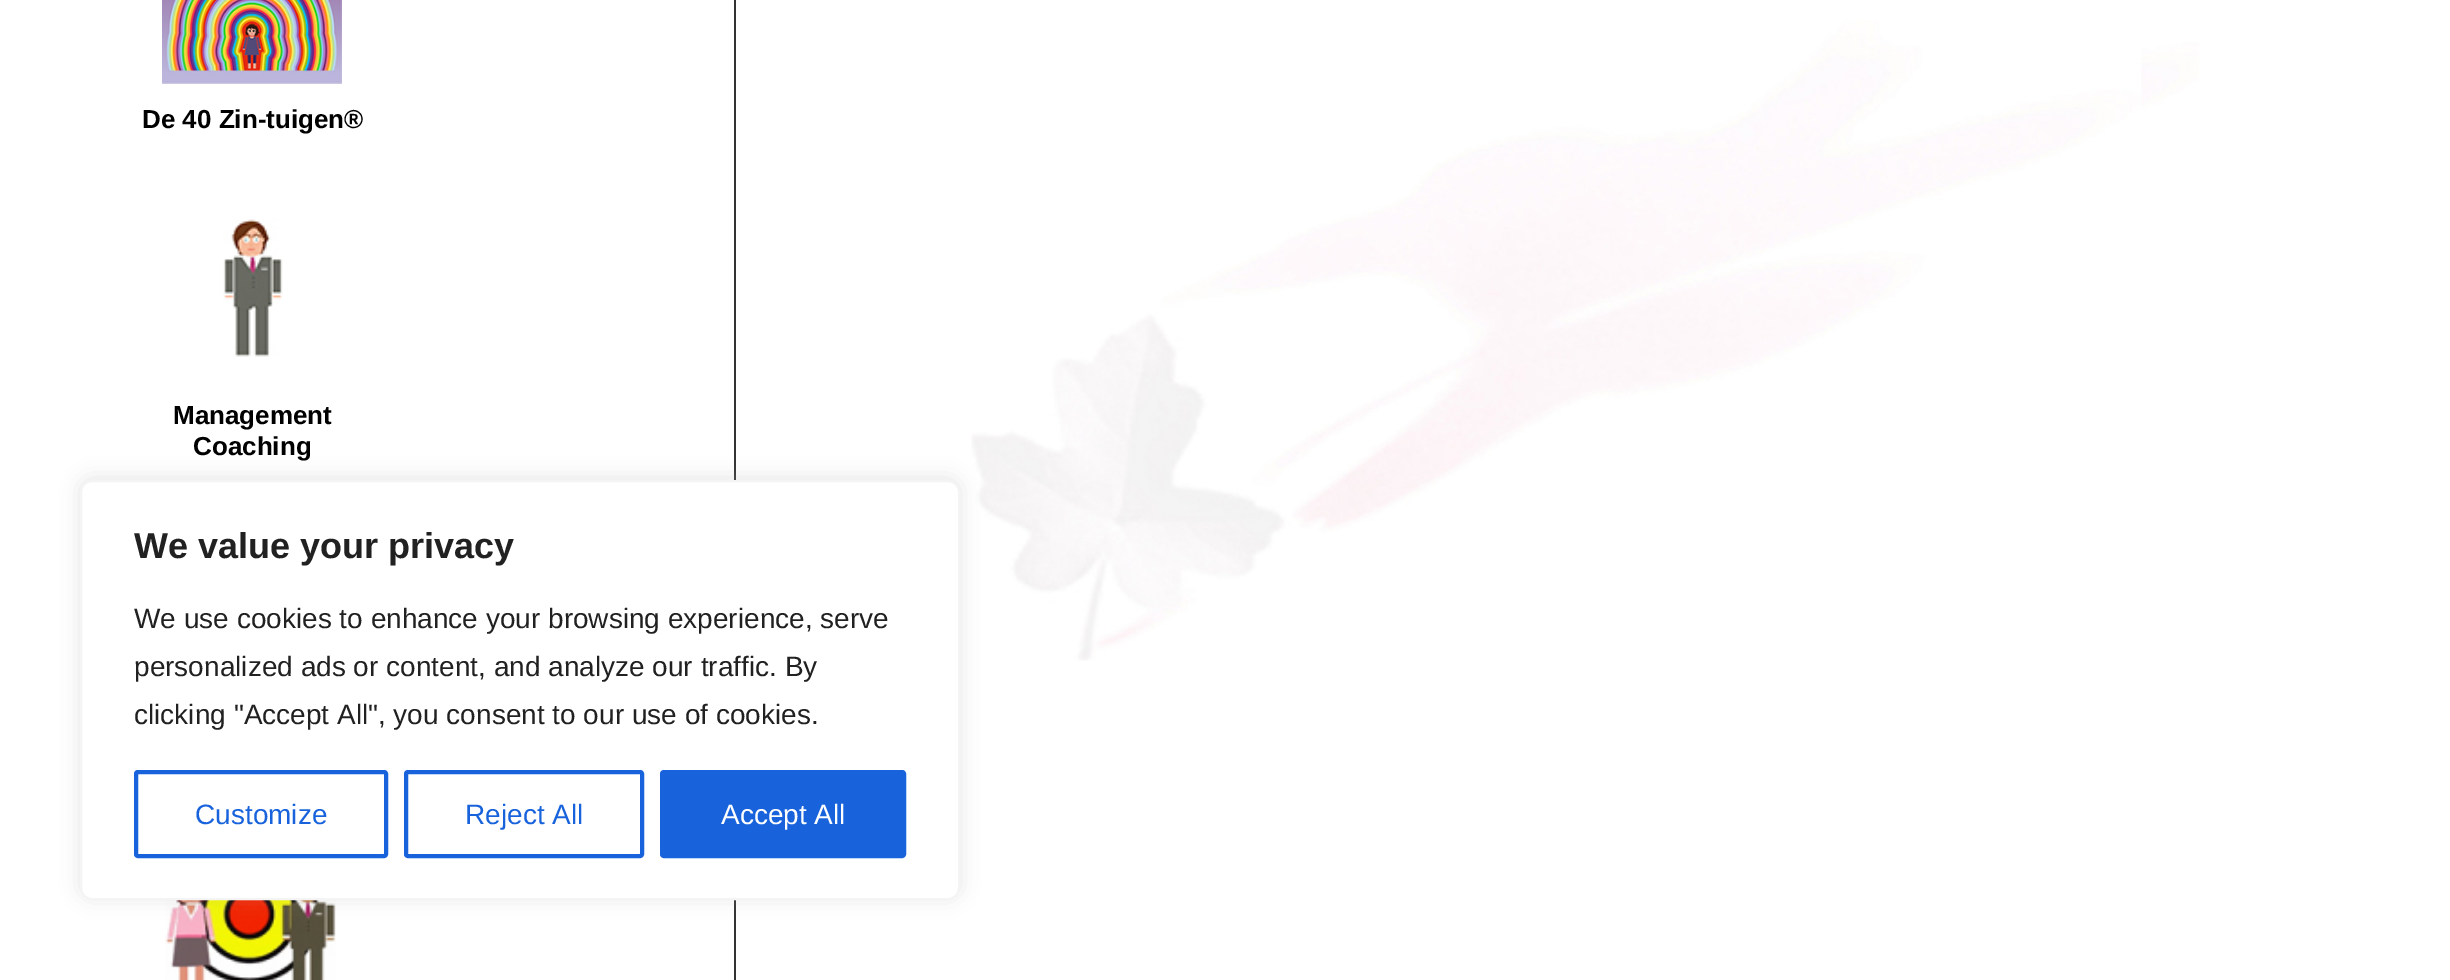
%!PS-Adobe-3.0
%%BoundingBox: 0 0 2450 980
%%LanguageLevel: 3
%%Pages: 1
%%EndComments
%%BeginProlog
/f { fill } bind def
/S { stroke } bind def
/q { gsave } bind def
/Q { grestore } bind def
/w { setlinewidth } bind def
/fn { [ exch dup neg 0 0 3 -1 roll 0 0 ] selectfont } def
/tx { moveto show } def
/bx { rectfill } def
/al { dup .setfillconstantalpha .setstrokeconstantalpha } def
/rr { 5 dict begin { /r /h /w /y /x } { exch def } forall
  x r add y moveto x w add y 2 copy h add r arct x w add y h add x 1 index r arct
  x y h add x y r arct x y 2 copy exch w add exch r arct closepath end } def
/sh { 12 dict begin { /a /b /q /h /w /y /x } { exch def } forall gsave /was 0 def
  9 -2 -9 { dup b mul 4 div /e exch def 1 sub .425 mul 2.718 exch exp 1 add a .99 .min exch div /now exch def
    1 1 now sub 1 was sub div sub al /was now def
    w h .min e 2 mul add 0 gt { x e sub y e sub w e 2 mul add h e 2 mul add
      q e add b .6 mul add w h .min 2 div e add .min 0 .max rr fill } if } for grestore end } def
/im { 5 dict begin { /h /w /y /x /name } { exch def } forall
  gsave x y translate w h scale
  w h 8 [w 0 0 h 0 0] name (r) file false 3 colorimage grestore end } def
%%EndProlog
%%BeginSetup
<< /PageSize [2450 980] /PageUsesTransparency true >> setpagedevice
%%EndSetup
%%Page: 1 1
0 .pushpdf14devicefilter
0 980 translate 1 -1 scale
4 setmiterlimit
1 setgray
0 0 2450 980 bx
(image0.raw) 162 0 180 84 im
/LiberationSans-Bold 26 fn
0 setgray
(De 40 Zin-tuigen®) 142 128 tx
(image1.raw) 223 219 60 138 im
(Management) 173 424 tx
(Coaching) 193 455 tx
(image2.raw) 165 900 171 80 im
(image3.raw) 971 20 1228 641 im
0.2 setgray
734 0 2 980 bx
0.675 0.671 0.671 setrgbcolor
80 478 880 420 12 10 0.3 sh
1 setgray
81 481 878 418 11 rr q f Q
0.957 setgray
2 w
S
/LiberationSans-Bold 36 fn
0.129 setgray
(We value your privacy) 134 558 tx
/LiberationSans-Regular 28 fn
(We use cookies to enhance your browsing experience, serve) 134 628 tx
(personalized ads or content, and analyze our traffic. By) 134 676 tx
(clicking "Accept All", you consent to our use of cookies.) 134 724 tx
0.094 0.388 0.863 setrgbcolor
4 w
136 772 250 84 2 rr S
(Customize) 195 824 tx
406 772 236 84 2 rr S
(Reject All) 465 824 tx
662 772 242 84 2 rr q f Q
S
1 setgray
(Accept All) 721 824 tx
.poppdf14devicefilter showpage
%%EOF
